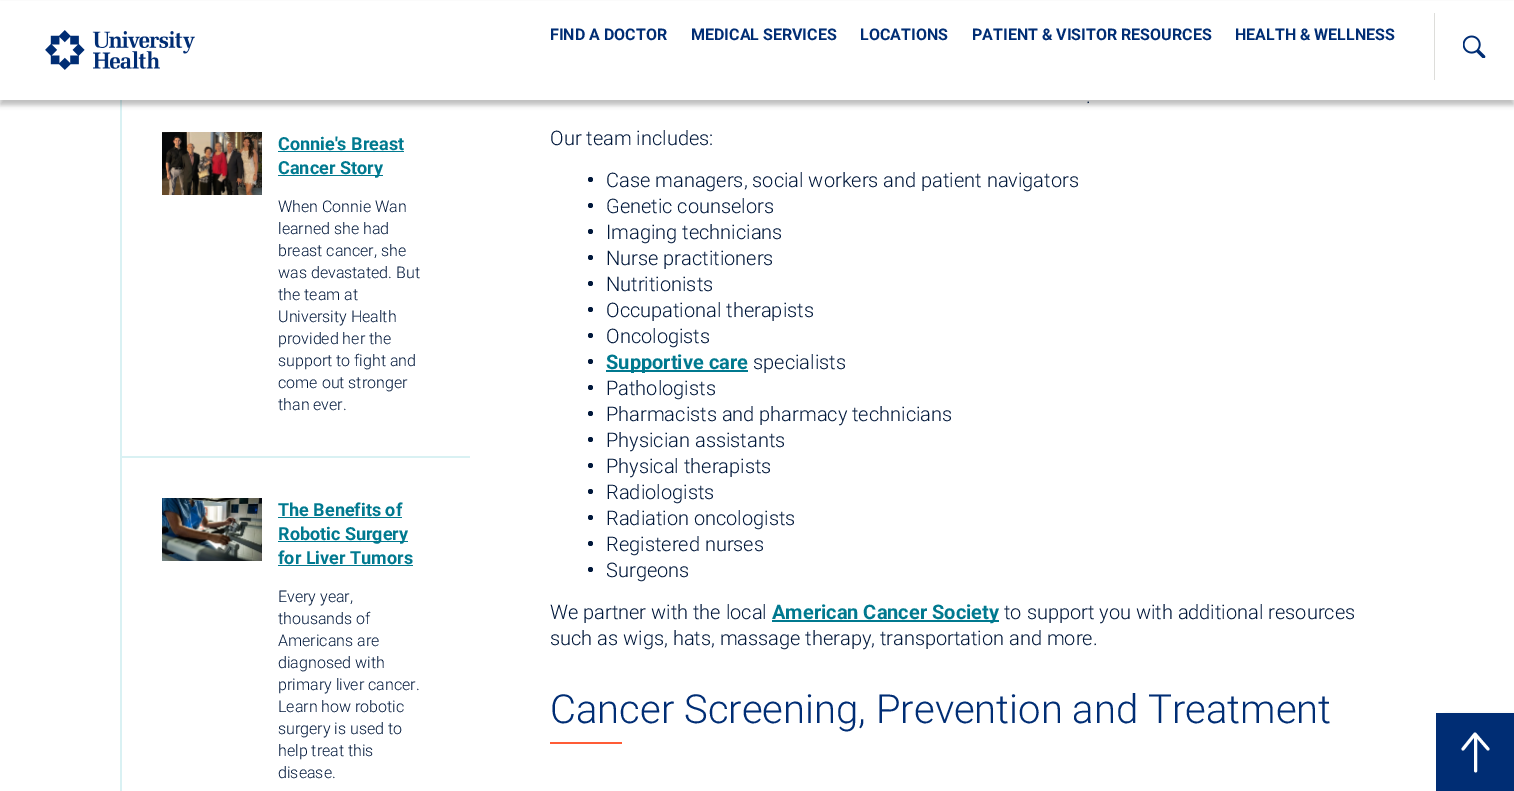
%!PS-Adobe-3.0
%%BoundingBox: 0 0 1514 791
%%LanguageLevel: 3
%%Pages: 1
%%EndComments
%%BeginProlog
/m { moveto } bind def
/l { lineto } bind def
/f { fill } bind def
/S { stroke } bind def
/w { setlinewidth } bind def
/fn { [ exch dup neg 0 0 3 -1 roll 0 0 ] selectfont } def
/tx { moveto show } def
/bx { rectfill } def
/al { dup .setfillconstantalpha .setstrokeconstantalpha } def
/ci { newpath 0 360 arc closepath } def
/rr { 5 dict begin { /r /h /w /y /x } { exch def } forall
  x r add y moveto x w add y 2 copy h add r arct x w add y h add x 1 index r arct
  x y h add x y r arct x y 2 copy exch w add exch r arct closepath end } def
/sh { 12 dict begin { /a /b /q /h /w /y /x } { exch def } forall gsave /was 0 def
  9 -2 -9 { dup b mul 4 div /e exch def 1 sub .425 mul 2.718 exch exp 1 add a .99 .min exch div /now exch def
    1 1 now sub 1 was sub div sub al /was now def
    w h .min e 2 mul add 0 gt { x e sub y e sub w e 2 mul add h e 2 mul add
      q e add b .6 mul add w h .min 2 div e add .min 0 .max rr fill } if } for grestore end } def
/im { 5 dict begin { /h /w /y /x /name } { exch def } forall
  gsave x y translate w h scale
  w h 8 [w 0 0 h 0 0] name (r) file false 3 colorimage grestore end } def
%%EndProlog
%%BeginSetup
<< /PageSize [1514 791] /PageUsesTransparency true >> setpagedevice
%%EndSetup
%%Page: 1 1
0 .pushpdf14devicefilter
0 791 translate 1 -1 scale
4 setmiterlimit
1 setgray
0 0 1514 791 bx
0.851 0.945 0.953 setrgbcolor
120 100 2 691 bx
0 setgray
0 5 1514 100 0 2.5 0.25 sh
1 setgray
0 1 1514 99 bx
(image0.raw) 45 30 150 40 im
/Roboto-Bold 16 fn
0 0.176 0.455 setrgbcolor
(FIND A DOCTOR) 550 40 tx
(MEDICAL SERVICES) 691 40 tx
(LOCATIONS) 860 40 tx
(PATIENT & VISITOR RESOURCES) 972 40 tx
(HEALTH & WELLNESS) 1235 40 tx
0.867 0.867 0.855 setrgbcolor
1434 13 1 67 bx
(image1.raw) 1463 35 23 23 im
(image2.raw) 162 132 100 63 im
/Roboto-Bold 18 fn
0 0.475 0.561 setrgbcolor
(Connie's Breast) 278 150 tx
278 151 126 1 bx
278 175 105 1 bx
(Cancer Story) 278 174 tx
/Roboto-Light 16 fn
0 0.09 0.227 setrgbcolor
(When Connie Wan) 278 212 tx
(learned she had) 278 234 tx
(breast cancer, she) 278 256 tx
(was devastated. But) 278 278 tx
(the team at) 278 300 tx
(University Health) 278 322 tx
(provided her the) 278 344 tx
(support to fight and) 278 366 tx
(come out stronger) 278 388 tx
(than ever.) 278 410 tx
0.851 0.945 0.953 setrgbcolor
122 456 348 2 bx
(image3.raw) 162 498 100 63 im
/Roboto-Bold 18 fn
0 0.475 0.561 setrgbcolor
(The Benefits of) 278 516 tx
278 517 124 1 bx
278 541 130 1 bx
(Robotic Surgery) 278 540 tx
(for Liver Tumors) 278 564 tx
278 565 135 1 bx
/Roboto-Light 16 fn
0 0.09 0.227 setrgbcolor
(Every year,) 278 602 tx
(thousands of) 278 624 tx
(Americans are) 278 646 tx
(diagnosed with) 278 668 tx
(primary liver cancer.) 278 690 tx
(Learn how robotic) 278 712 tx
(surgery is used to) 278 734 tx
(help treat this) 278 756 tx
(disease.) 278 778 tx
/Roboto-Light 20 fn
(.) 1086 103 tx
(Our team includes:) 550 145 tx
590.5 179.5 2.5 ci f
(Case managers, social workers and patient navigators) 606 187 tx
590.5 205.5 2.5 ci f
(Genetic counselors) 606 213 tx
590.5 231.5 2.5 ci f
(Imaging technicians) 606 239 tx
590.5 257.5 2.5 ci f
(Nurse practitioners) 606 265 tx
590.5 283.5 2.5 ci f
(Nutritionists) 606 291 tx
590.5 309.5 2.5 ci f
(Occupational therapists) 606 317 tx
590.5 335.5 2.5 ci f
(Oncologists) 606 343 tx
590.5 361.5 2.5 ci f
0 0.475 0.561 setrgbcolor
606 370 142 2 bx
/Roboto-Bold 20 fn
(Supportive care) 606 369 tx
/Roboto-Light 20 fn
0 0.09 0.227 setrgbcolor
(specialists) 753 369 tx
590.5 387.5 2.5 ci f
(Pathologists) 606 395 tx
590.5 413.5 2.5 ci f
(Pharmacists and pharmacy technicians) 606 421 tx
590.5 439.5 2.5 ci f
(Physician assistants) 606 447 tx
590.5 465.5 2.5 ci f
(Physical therapists) 606 473 tx
590.5 491.5 2.5 ci f
(Radiologists) 606 499 tx
590.5 517.5 2.5 ci f
(Radiation oncologists) 606 525 tx
590.5 543.5 2.5 ci f
(Registered nurses) 606 551 tx
590.5 569.5 2.5 ci f
(Surgeons) 606 577 tx
(We partner with the local) 550 619 tx
0 0.475 0.561 setrgbcolor
772 620 227 2 bx
/Roboto-Bold 20 fn
(American Cancer Society) 772 619 tx
/Roboto-Light 20 fn
0 0.09 0.227 setrgbcolor
(to support you with additional resources) 1004 619 tx
(such as wigs, hats, massage therapy, transportation and more.) 550 645 tx
/Roboto-Light 40 fn
0 0.176 0.455 setrgbcolor
(Cancer Screening, Prevention and Treatment) 550 723 tx
1 0.361 0.212 setrgbcolor
550 742 72 2 bx
0.502 setgray
1444 717 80 60 2 2.5 1 sh
0 0.176 0.455 setrgbcolor
1436 713 78 78 bx
1 setgray
2.9 w
1 setlinecap
1475.5 771 m 1475.5 735 l S
1 setlinejoin
1488 749 m 1475 734 l 1463 749 l S
.poppdf14devicefilter showpage
%%EOF
